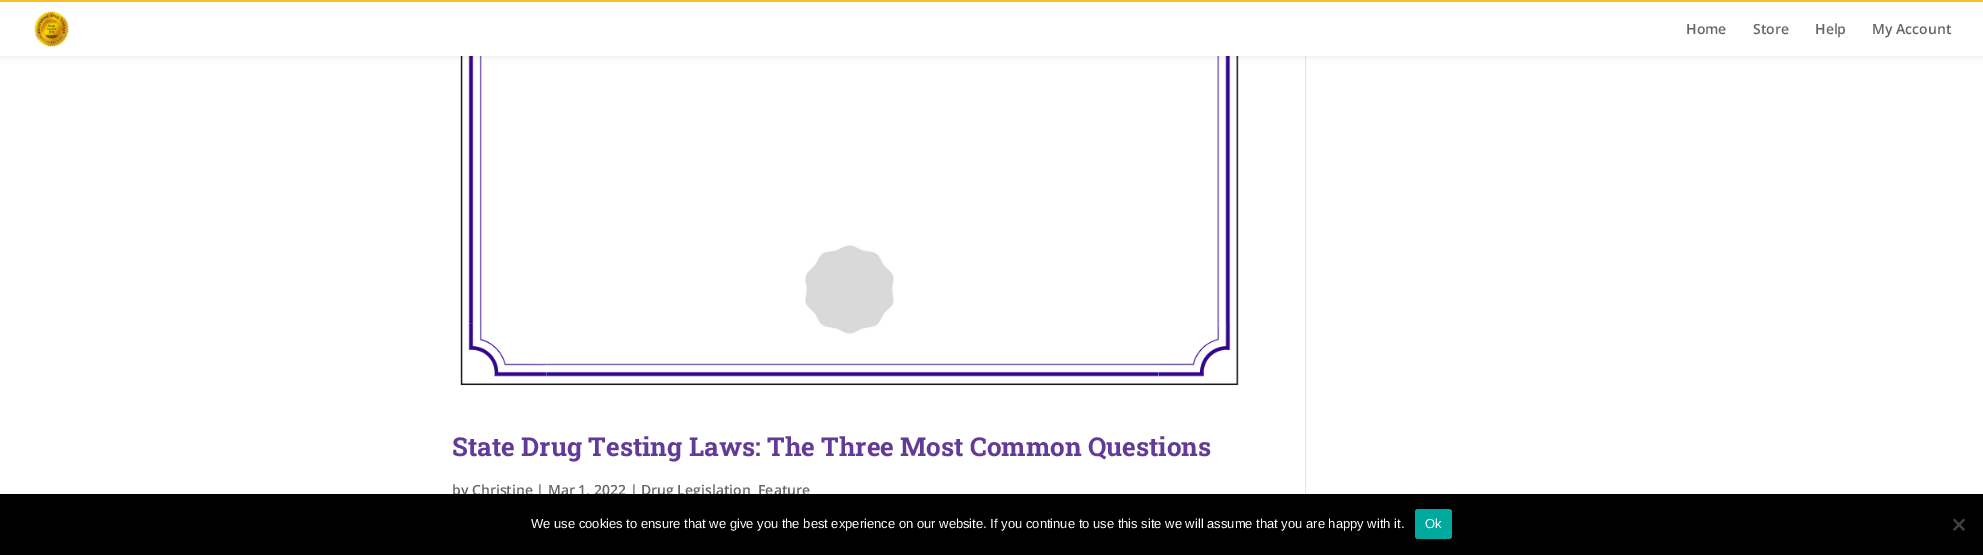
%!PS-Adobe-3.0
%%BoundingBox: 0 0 1983 555
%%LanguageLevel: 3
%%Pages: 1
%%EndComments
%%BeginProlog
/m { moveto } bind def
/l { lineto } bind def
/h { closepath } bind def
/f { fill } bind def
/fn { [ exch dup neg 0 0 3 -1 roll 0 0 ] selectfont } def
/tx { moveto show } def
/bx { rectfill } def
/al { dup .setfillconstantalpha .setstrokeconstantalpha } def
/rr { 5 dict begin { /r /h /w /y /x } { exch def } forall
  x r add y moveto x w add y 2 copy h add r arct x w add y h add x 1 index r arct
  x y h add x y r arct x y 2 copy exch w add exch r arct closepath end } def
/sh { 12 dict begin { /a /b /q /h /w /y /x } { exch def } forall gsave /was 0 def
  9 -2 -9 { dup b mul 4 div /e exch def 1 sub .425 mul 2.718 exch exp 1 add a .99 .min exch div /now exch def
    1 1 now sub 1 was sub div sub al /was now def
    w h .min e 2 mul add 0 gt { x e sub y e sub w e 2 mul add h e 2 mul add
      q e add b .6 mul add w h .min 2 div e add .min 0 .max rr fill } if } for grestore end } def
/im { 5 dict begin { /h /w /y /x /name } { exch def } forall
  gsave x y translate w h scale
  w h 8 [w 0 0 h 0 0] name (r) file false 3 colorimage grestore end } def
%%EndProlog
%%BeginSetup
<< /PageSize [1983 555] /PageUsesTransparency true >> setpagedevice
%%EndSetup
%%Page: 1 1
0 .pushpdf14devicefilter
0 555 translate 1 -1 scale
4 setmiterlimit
1 setgray
0 0 1983 555 bx
(image1.raw) 460 56 779 330 im
0.886 setgray
1305 56 1 438 bx
0 setgray
0 0 1983 56 0 3.5 0.1 sh
1 setgray
0 2 1983 54 bx
0.984 0.749 0.141 setrgbcolor
0 0 1983 2 bx
(image0.raw) 34 11 35 36 im
/OpenSans-SemiBold 14 fn
0.4 setgray
(Home) 1686 34 tx
(Store) 1753 34 tx
(Help) 1815 34 tx
(My Account) 1872 34 tx
/RobotoSlab-Bold 26 fn
0.384 0.231 0.6 setrgbcolor
(State Drug Testing Laws: The Three Most Common Questions) 452 456 tx
/OpenSans-SemiBold 14 fn
0.4 setgray
(by Christine | Mar 1, 2022 | Drug Legislation) 452 495 tx
(Feature) 758 495 tx
0 setgray
0 494 1983 61 bx
/LiberationSans-Regular 13 fn
1 setgray
(We use cookies to ensure that we give you the best experience on our website. If you continue to use this site we will assume that you are happy with it.) 531 528 tx
0 0.663 0.616 setrgbcolor
1415 509 37 30 3 rr f
1 setgray
(Ok) 1425 528 tx
0.251 setgray
1963.5 518.5 m 1965 520 l 1954.5 531 l 1953 529.5 l h f
1953 520 m 1954.5 518.5 l 1965 529.5 l 1963.5 531 l h f
.poppdf14devicefilter showpage
%%EOF
